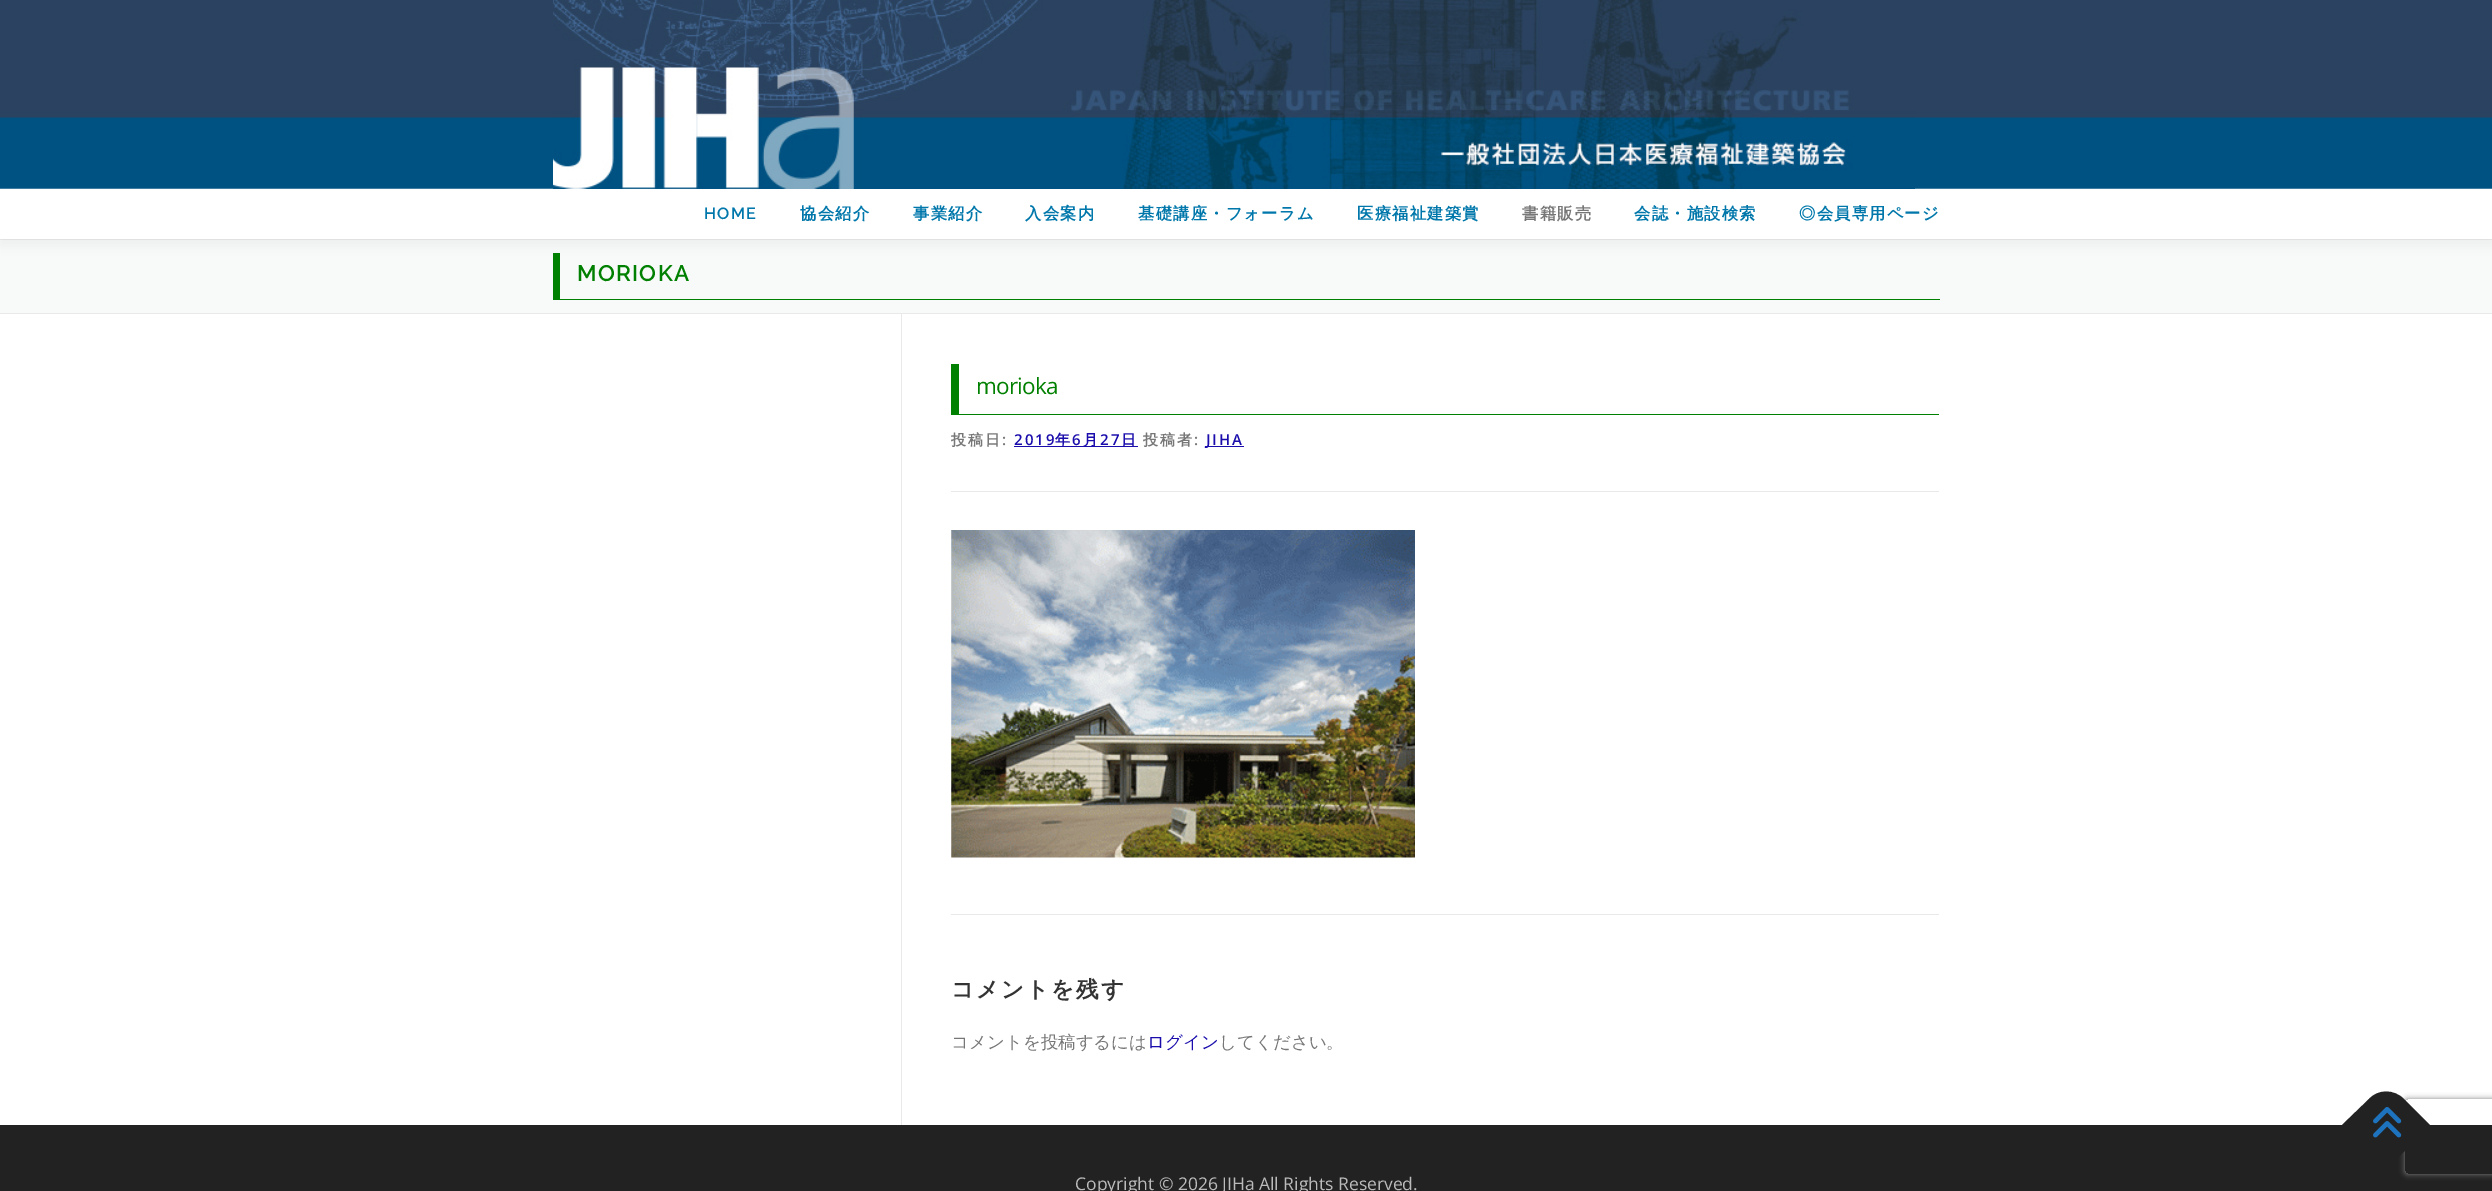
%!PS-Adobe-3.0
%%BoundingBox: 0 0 2492 1191
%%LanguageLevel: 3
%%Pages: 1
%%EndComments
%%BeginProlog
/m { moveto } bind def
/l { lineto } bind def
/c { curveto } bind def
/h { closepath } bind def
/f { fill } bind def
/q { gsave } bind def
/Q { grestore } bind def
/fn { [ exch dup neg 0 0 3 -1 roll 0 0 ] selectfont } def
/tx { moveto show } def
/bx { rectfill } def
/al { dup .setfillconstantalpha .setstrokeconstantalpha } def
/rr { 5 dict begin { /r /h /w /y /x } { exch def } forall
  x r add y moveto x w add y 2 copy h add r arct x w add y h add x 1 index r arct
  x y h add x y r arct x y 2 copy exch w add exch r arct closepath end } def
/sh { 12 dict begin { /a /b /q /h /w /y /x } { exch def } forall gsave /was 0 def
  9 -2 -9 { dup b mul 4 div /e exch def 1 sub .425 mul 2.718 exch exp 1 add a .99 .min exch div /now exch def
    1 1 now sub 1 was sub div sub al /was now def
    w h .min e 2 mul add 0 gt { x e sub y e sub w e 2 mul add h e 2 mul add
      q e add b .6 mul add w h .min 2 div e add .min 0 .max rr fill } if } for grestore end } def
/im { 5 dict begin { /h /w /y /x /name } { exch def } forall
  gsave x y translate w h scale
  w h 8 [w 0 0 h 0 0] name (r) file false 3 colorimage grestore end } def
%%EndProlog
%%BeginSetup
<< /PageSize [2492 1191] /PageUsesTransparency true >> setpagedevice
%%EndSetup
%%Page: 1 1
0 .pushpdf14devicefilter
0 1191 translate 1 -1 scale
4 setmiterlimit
1 setgray
0 0 2492 1191 bx
0.973 0.976 0.976 setrgbcolor
0 240 2492 73 bx
0.914 setgray
0 239 2492 1 bx
0 0.502 0 setrgbcolor
553 299 1387 1 bx
553 253 7 47 bx
0.196 setgray
0 6 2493 239 0 6 0.06 sh
1 setgray
0 188 2492 51 bx
(image0.raw) 0 0 2492 189 im
(image1.raw) 553 0 1362 189 im
/Raleway-SemiBold 16.25 fn
0 0.467 0.667 setrgbcolor
704 219 m 1.25 0 (HOME) ashow
/WenQuanYiZenHei-Bold 16.25 fn
800 219 m 1.25 0 (協会紹介) ashow
913 219 m 1.25 0 (事業紹介) ashow
1025 219 m 1.25 0 (入会案内) ashow
1138 219 m 1.25 0 (基礎講座・フォーラム) ashow
1357 219 m 1.25 0 (医療福祉建築賞) ashow
0.467 setgray
1522 219 m 1.25 0 (書籍販売) ashow
0 0.467 0.667 setrgbcolor
1634 219 m 1.25 0 (会誌・施設検索) ashow
1799 219 m 1.25 0 (◎会員専用ページ) ashow
0.914 setgray
0 313 2492 1 bx
/Raleway-SemiBold 22.5 fn
0 0.502 0 setrgbcolor
577 281 m 1.25 0 (MORIOKA) ashow
0.914 setgray
901 314 1 811 bx
0 0.502 0 setrgbcolor
951 414 988 1 bx
951 364 8 51 bx
/OpenSans-Regular 22.5 fn
976 394 m -0.75 0 (morioka) ashow
0.914 setgray
951 491 988 1 bx
/WenQuanYiZenHei-Bold 15 fn
0.467 setgray
951 445 m 2 0 (投稿日) ashow
/OpenSans-SemiBold 15 fn
1002 445 m 2 0 (:) ashow
0.102 0.051 0.671 setrgbcolor
1014 445 m 2 0 (2019) ashow
1014 446 124 1 bx
/WenQuanYiZenHei-Bold 15 fn
1055 445 m 2 0 (年) ashow
/OpenSans-SemiBold 15 fn
1072 445 m 2 0 (6) ashow
/WenQuanYiZenHei-Bold 15 fn
1083 445 m 2 0 (月) ashow
/OpenSans-SemiBold 15 fn
1100 445 m 2 0 (27) ashow
/WenQuanYiZenHei-Bold 15 fn
1121 445 m 2 0 (日) ashow
0.467 setgray
1143 445 m 2 0 (投稿者) ashow
/OpenSans-SemiBold 15 fn
1194 445 m 2 0 (:) ashow
0.102 0.051 0.671 setrgbcolor
1205 446 39 1 bx
1206 445 m 2 0 (JIHA) ashow
(image2.raw) 951 530 464 328 im
0.914 setgray
951 914 988 1 bx
/WenQuanYiZenHei-Bold 22.5 fn
0.2 setgray
951 997 m 2 0 (コメントを残す) ashow
/WenQuanYiZenHei-Medium 17.5 fn
0.467 setgray
(コメントを投稿するには) 951 1048 tx
0.102 0.051 0.671 setrgbcolor
(ログイン) 1147 1048 tx
0.467 setgray
(してください。) 1219 1048 tx
0.133 setgray
0 1125 2492 66 bx
q
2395 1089 m 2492 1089 l 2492 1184 l 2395 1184 l h 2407.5 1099 m 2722.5 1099 l 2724 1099 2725 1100 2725 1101.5 c 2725 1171.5 l 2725 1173 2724 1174 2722.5 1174 c 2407.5 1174 l 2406 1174 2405 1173 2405 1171.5 c 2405 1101.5 l 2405 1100 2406 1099 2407.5 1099 c h eoclip newpath
0.502 setgray
2405 1099 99 75 2.5 3 1 sh
Q
2342 1125 m 2369 1099 l 2378 1089 2394 1089 2404 1099 c 2430 1125 l 2386 1170 l h f
(image3.raw) 2373 1107 29 31 im
/OpenSans-Regular 17.5 fn
0.733 setgray
(Copyright © 2026 JIHa All Rights Reserved.) 1075 1190 tx
.poppdf14devicefilter showpage
%%EOF
